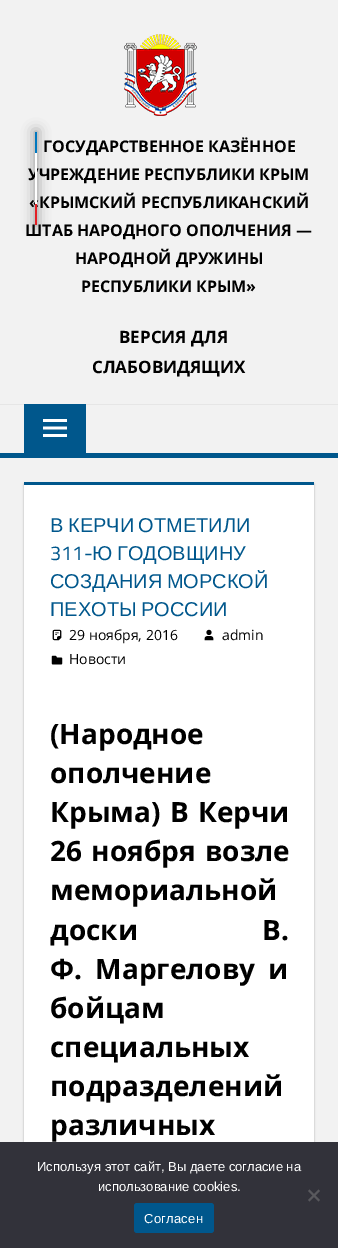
%!PS-Adobe-3.0
%%BoundingBox: 0 0 338 1248
%%LanguageLevel: 3
%%Pages: 1
%%EndComments
%%BeginProlog
/m { moveto } bind def
/l { lineto } bind def
/h { closepath } bind def
/f { fill } bind def
/fn { [ exch dup neg 0 0 3 -1 roll 0 0 ] selectfont } def
/tx { moveto show } def
/bx { rectfill } def
/al { dup .setfillconstantalpha .setstrokeconstantalpha } def
/rr { 5 dict begin { /r /h /w /y /x } { exch def } forall
  x r add y moveto x w add y 2 copy h add r arct x w add y h add x 1 index r arct
  x y h add x y r arct x y 2 copy exch w add exch r arct closepath end } def
/sh { 12 dict begin { /a /b /q /h /w /y /x } { exch def } forall gsave /was 0 def
  9 -2 -9 { dup b mul 4 div /e exch def 1 sub .425 mul 2.718 exch exp 1 add a .99 .min exch div /now exch def
    1 1 now sub 1 was sub div sub al /was now def
    w h .min e 2 mul add 0 gt { x e sub y e sub w e 2 mul add h e 2 mul add
      q e add b .6 mul add w h .min 2 div e add .min 0 .max rr fill } if } for grestore end } def
/im { 5 dict begin { /h /w /y /x /name } { exch def } forall
  gsave x y translate w h scale
  w h 8 [w 0 0 h 0 0] name (r) file false 3 colorimage grestore end } def
%%EndProlog
%%BeginSetup
<< /PageSize [338 1248] /PageUsesTransparency true >> setpagedevice
%%EndSetup
%%Page: 1 1
0 .pushpdf14devicefilter
0 1248 translate 1 -1 scale
4 setmiterlimit
0.949 setgray
0 0 338 1248 bx
(image0.raw) 124 34 73 82 im
0 setgray
35 132 2 93 0 6.5 0.4 sh
/OpenSans-Bold 16 fn
(УЧРЕЖДЕНИЕ РЕСПУБЛИКИ КРЫМ) 28 180 tx
(«КРЫМСКИЙ РЕСПУБЛИКАНСКИЙ) 29 208 tx
(ШТАБ НАРОДНОГО ОПОЛЧЕНИЯ —) 25 236 tx
(image1.raw) 35 132 2 93 im
(ГОСУДАРСТВЕННОЕ КАЗЁННОЕ) 43 152 tx
(НАРОДНОЙ ДРУЖИНЫ) 75 264 tx
(РЕСПУБЛИКИ КРЫМ») 81 292 tx
/OpenSans-Bold 17 fn
(ВЕРСИЯ ДЛЯ) 119 343 tx
(СЛАБОВИДЯЩИХ) 92 373 tx
0.902 setgray
0 404 338 1 bx
0 0.341 0.549 setrgbcolor
0 453 338 5 bx
24 404 62 49 bx
(image2.raw) 43 419 24 18 im
0.667 setgray
24 484 290 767 0 1 1 sh
1 setgray
24 485 290 657 bx
0 0.341 0.549 setrgbcolor
24 482 290 3 bx
/LiberationSans-Regular 20 fn
50 532 m -1 0 32 (В КЕРЧИ ОТМЕТИЛИ) widthshow
/TitilliumWeb-Regular 20 fn
(311-) 50 560 tx
/LiberationSans-Regular 20 fn
92 560 m -1 0 32 (Ю ГОДОВЩИНУ) widthshow
50 588 m -1 0 32 (СОЗДАНИЯ МОРСКОЙ) widthshow
50 616 m -1 0 32 (ПЕХОТЫ РОССИИ) widthshow
(image3.raw) 52 629 10 12 im
/OpenSans-Regular 14 fn
0 setgray
(29 ноября, 2016) 69 640 tx
(image4.raw) 204 629 10 12 im
(admin) 222 640 tx
(image5.raw) 51 655 12 10 im
(Новости) 69 664 tx
/OpenSans-Bold 28 fn
(\(Народное) 50 744 tx
(ополчение) 50 783 tx
50 822 m 2 0 32 (Крыма\) В Керчи) widthshow
50 861 m 2 0 32 (26 ноября возле) widthshow
(мемориальной) 50 900 tx
50 940 m 117 0 32 (доски В.) widthshow
50 979 m 6 0 32 (Ф. Маргелову и) widthshow
(бойцам) 50 1018 tx
(специальных) 50 1057 tx
(подразделений) 50 1096 tx
(различных) 50 1135 tx
0.196 0.196 0.227 setrgbcolor
0 1142 338 106 bx
/LiberationSans-Regular 13 fn
1 setgray
(Используя этот сайт, Вы даете согласие на) 37 1171 tx
(использование cookies.) 98 1191 tx
0.349 0.349 0.365 setrgbcolor
318.5 1189.5 m 320 1191 l 309.5 1201.5 l 308 1200 l h f
308 1191 m 309.5 1189.5 l 320 1200 l 318.5 1201.5 l h f
0 0.341 0.549 setrgbcolor
134 1203 80 30 3 rr f
1 setgray
144 1223 m 0.25 0 (Согласен) ashow
.poppdf14devicefilter showpage
%%EOF
